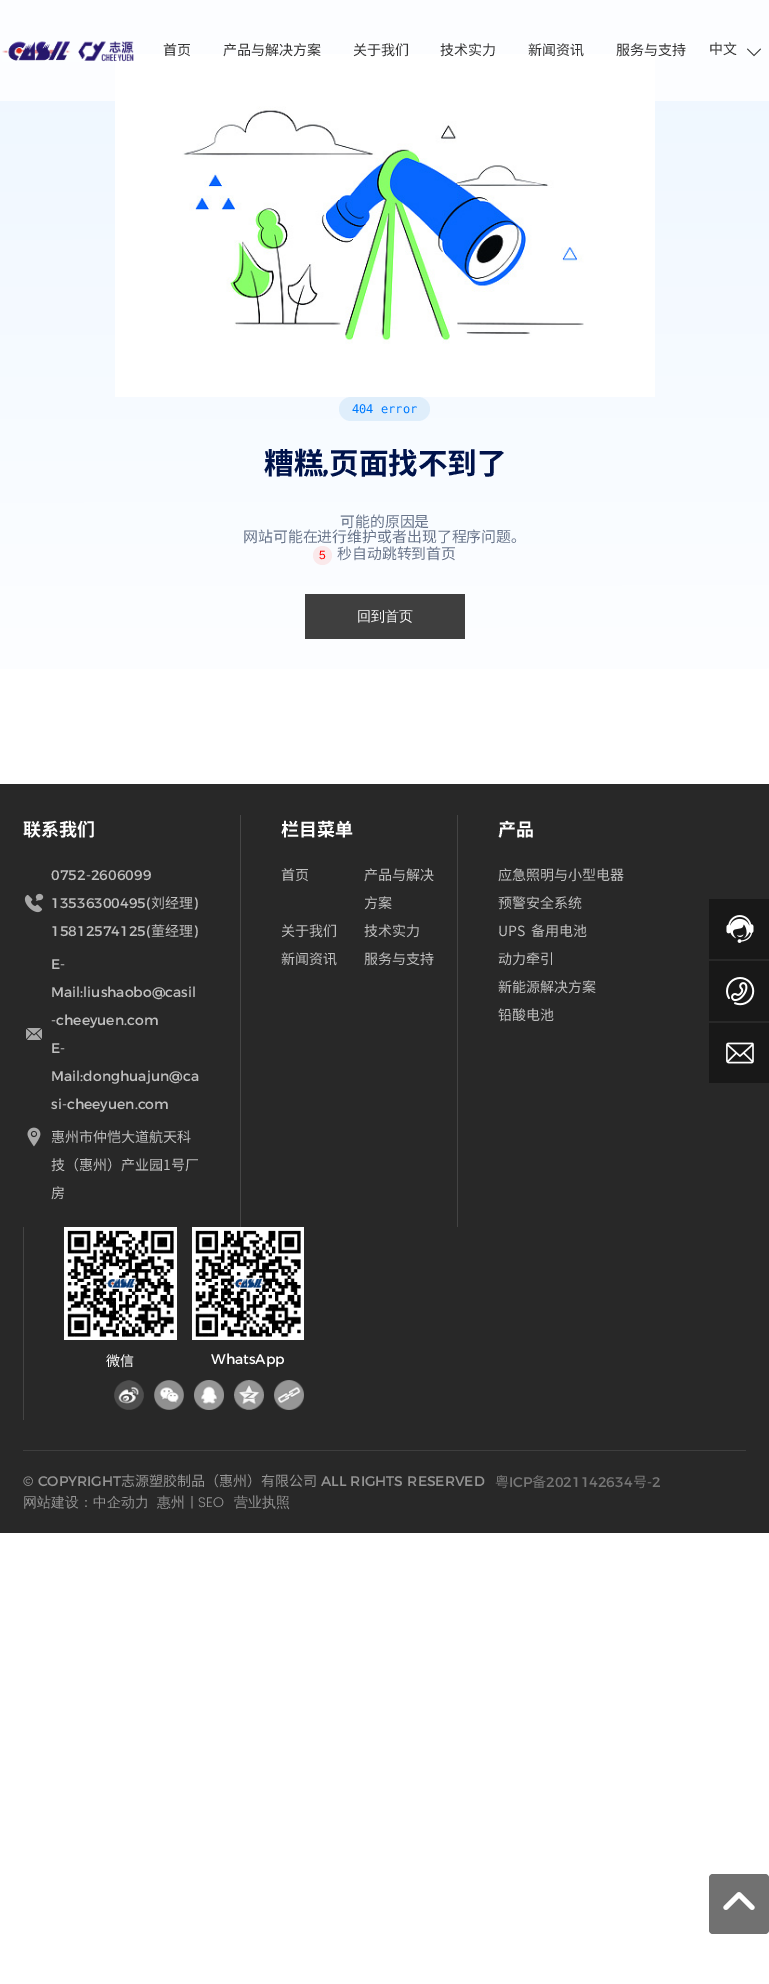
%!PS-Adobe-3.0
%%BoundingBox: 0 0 769 1984
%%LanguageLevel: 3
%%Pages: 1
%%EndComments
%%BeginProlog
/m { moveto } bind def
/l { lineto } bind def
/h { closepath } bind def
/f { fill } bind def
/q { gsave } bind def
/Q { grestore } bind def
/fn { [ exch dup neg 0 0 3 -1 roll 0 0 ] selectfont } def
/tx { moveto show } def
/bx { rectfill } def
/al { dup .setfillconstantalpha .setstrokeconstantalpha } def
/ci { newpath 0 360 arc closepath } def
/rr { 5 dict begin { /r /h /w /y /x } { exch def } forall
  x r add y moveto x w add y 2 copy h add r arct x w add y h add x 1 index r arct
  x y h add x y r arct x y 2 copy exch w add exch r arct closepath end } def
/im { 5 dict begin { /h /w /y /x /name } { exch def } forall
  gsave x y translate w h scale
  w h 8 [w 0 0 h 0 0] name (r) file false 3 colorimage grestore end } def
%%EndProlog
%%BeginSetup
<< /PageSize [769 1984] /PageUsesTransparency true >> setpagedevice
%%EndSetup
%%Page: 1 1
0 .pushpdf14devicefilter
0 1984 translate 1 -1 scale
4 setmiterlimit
1 setgray
0 0 769 1984 bx
q 0 0 m 769 0 l 769 669 l 0 669 l h clip newpath
<< /ShadingType 2 /ColorSpace /DeviceRGB /Coords [384 0 385 784] /Extend [true true] /Function << /FunctionType 2 /Domain [0 1] /C0 [0.933 0.969 1] /C1 [1 1 1] /N 1 >> >> shfill Q
(image2.raw) 115 54 540 343 im
0.8 al
0 0 769 101 bx
1 al
(image0.raw) 2 41 132 21 im
/NotoSansSC-Regular 14 fn
0.2 setgray
(首页) 163 55 tx
(产品与解决方案) 223 55 tx
(关于我们) 353 55 tx
(技术实力) 440 55 tx
(新闻资讯) 528 55 tx
(服务与支持) 616 55 tx
(中文) 709 54 tx
(image1.raw) 747 48 14 9 im
0.875 0.933 0.984 setrgbcolor
339 397 91 24 12 rr f
/DejaVuSansMono-Regular 12 fn
0 0.482 1 setrgbcolor
(404 error) 352 413 tx
/NotoSansSC-Bold 29.5 fn
0 0.075 0.294 setrgbcolor
(糟糕) 264 474 tx
/Montserrat-Bold 29.5 fn
(,) 322 474 tx
/NotoSansSC-Bold 29.5 fn
(页面找不到了) 329 474 tx
/NotoSansSC-Regular 14.9 fn
0.412 0.459 0.545 setrgbcolor
(可能的原因是) 340 527 tx
(网站可能在进行维护或者出现了程序问题。) 243 542 tx
0.98 0.914 0.922 setrgbcolor
322.5 555.5 9.5 ci f
/LiberationSans-Regular 12 fn
1 0 0 setrgbcolor
(5) 319 559 tx
/NotoSansSC-Regular 14.9 fn
0.412 0.459 0.545 setrgbcolor
(秒自动跳转到首页) 337 559 tx
0.247 setgray
305 594 160 45 bx
/WenQuanYiZenHei-Medium 14 fn
1 setgray
(回到首页) 357 621 tx
0.157 setgray
0 784 769 749 bx
/NotoSansSC-Bold 18 fn
1 setgray
(联系我们) 23 836 tx
(image3.raw) 24 893 20 20 im
/Montserrat-Regular 14 fn
0.749 setgray
(0752-2606099) 51 880 tx
(13536300495\() 51 908 tx
/NotoSansSC-Regular 14 fn
(刘经理) 151 908 tx
/Montserrat-Regular 14 fn
(\)) 193 908 tx
(15812574125\() 51 936 tx
/NotoSansSC-Regular 14 fn
(董经理) 151 936 tx
/Montserrat-Regular 14 fn
(\)) 193 936 tx
(image4.raw) 26 1028 16 12 im
(E-) 51 969 tx
(Mail:liushaobo@casil) 51 997 tx
(-cheeyuen.com) 51 1025 tx
(E-) 51 1053 tx
(Mail:donghuajun@ca) 51 1081 tx
(si-cheeyuen.com) 51 1109 tx
(image5.raw) 27 1127 14 20 im
/NotoSansSC-Regular 14 fn
(惠州市仲恺大道航天科) 51 1142 tx
(技（惠州）产业园1号厂) 51 1170 tx
(房) 51 1198 tx
0.275 setgray
240 815 1 412 bx
/NotoSansSC-Bold 18 fn
1 setgray
(栏目菜单) 281 836 tx
/NotoSansSC-Regular 14 fn
0.749 setgray
(首页) 281 880 tx
(产品与解决) 364 880 tx
(方案) 364 908 tx
(关于我们) 281 936 tx
(技术实力) 364 936 tx
(新闻资讯) 281 964 tx
(服务与支持) 364 964 tx
0.267 setgray
457 815 1 412 bx
/NotoSansSC-Bold 18 fn
1 setgray
(产品) 498 836 tx
/NotoSansSC-Regular 14 fn
0.749 setgray
(应急照明与小型电器) 498 880 tx
(预警安全系统) 498 908 tx
498 936 m 3 0 32 (UPS 备用电池) widthshow
(动力牵引) 498 964 tx
(新能源解决方案) 498 992 tx
(铅酸电池) 498 1020 tx
0.267 setgray
23 1227 1 193 bx
(image6.raw) 64 1227 113 113 im
1 setgray
(微信) 106 1366 tx
(image7.raw) 192 1227 112 113 im
/Montserrat-Regular 14 fn
(WhatsApp) 211 1364 tx
(image8.raw) 114 1380 30 30 im
(image9.raw) 154 1380 30 30 im
(image10.raw) 194 1380 30 30 im
(image11.raw) 234 1380 30 30 im
(image12.raw) 274 1380 30 30 im
0.243 setgray
23 1450 723 1 bx
0.58 setgray
(© COPYRIGHT) 23 1486 tx
/NotoSansSC-Regular 14 fn
(志源塑胶制品（惠州）有限公司) 121 1486 tx
/Montserrat-Regular 14 fn
(ALL RIGHTS RESERVED) 321 1486 tx
/NotoSansSC-Regular 14 fn
0.463 setgray
(粤) 495 1487 tx
/Montserrat-Regular 14 fn
(ICP) 509 1487 tx
/NotoSansSC-Regular 14 fn
(备) 532 1487 tx
/Montserrat-Regular 14 fn
(2021142634) 546 1487 tx
/NotoSansSC-Regular 14 fn
(号) 633 1487 tx
/Montserrat-Regular 14 fn
(-2) 647 1487 tx
/WenQuanYiZenHei-Medium 14 fn
0.58 setgray
(网站建设：中企动力) 23 1507 tx
(惠州) 157 1507 tx
/Poppins-Light 14 fn
(| SEO) 190 1507 tx
/WenQuanYiZenHei-Medium 14 fn
(营业执照) 234 1507 tx
0.443 setgray
709 1874 60 60 4 rr f
(image13.raw) 723 1892 32 18 im
0.094 setgray
709 899 60 60 bx
(image14.raw) 726 915 28 28 im
709 961 60 60 bx
(image15.raw) 726 977 29 29 im
709 1023 60 60 bx
(image16.raw) 726 1042 28 22 im
.poppdf14devicefilter showpage
%%EOF
